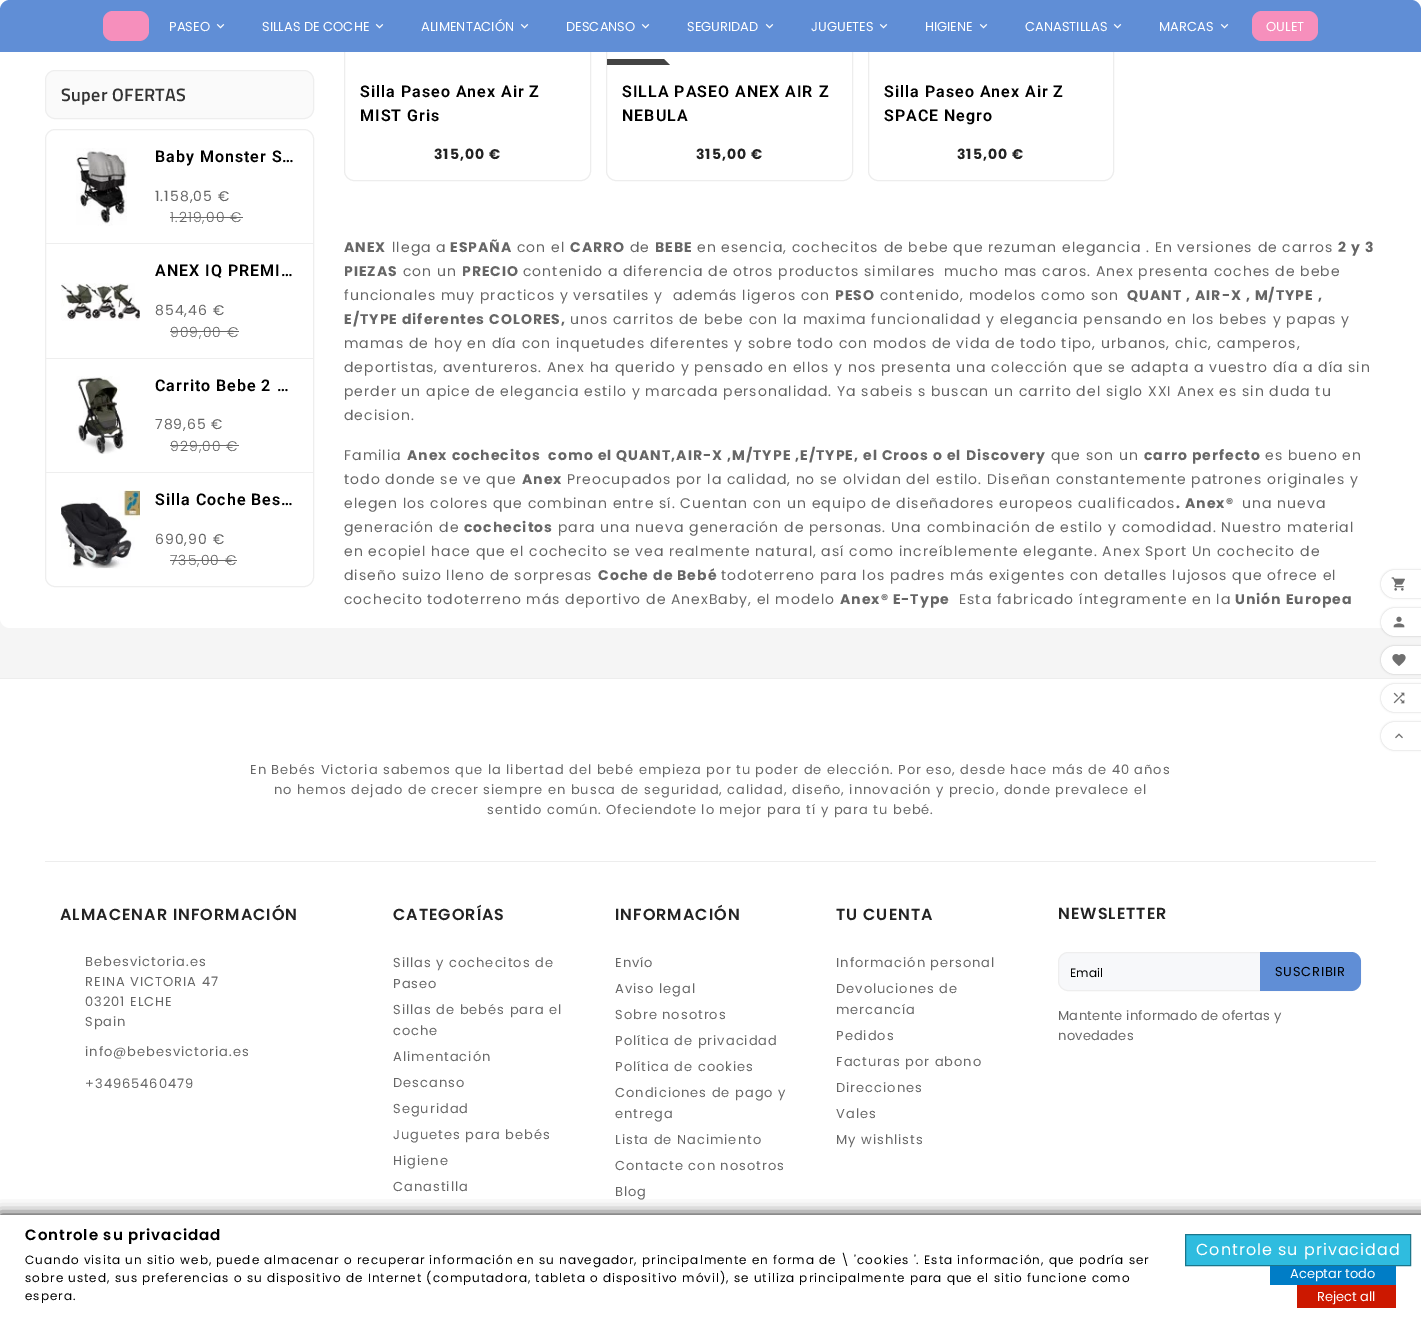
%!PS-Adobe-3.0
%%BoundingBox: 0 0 1421 1320
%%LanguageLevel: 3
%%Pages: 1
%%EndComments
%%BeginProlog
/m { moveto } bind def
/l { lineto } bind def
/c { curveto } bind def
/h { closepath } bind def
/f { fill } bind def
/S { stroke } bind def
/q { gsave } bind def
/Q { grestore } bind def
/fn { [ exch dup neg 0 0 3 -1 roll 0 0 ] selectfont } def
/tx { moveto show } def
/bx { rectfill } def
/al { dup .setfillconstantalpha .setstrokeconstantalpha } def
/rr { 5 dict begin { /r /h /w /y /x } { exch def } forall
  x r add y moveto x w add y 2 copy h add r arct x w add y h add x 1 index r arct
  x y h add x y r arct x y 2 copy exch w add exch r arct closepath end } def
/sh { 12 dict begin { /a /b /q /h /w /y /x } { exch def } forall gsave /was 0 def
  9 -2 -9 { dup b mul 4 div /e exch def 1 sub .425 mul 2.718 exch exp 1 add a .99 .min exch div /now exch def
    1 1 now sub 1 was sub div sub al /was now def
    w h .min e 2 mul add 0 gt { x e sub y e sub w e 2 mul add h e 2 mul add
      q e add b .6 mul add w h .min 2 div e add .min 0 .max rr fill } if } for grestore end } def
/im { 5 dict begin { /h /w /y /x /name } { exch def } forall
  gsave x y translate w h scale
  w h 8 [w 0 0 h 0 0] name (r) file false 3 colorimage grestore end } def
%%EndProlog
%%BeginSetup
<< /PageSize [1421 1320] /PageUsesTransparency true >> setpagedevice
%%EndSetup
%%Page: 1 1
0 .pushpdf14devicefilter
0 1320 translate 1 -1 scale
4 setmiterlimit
0.961 setgray
0 0 1421 1320 bx
1 setgray
0 -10 m 1421 -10 l 1421 618 l 1421 623.5 1416.5 628 1411 628 c 10 628 l 4.5 628 0 623.5 0 618 c h f
0.929 setgray
344.5 43.5 246 137 9.5 rr S
606.5 43.5 246 137 9.5 rr S
868.5 43.5 245 137 9.5 rr S
0.376 0.557 0.839 setrgbcolor
10 0 m 1411 0 l 1416.5 0 1421 4.5 1421 10 c 1421 52 l 0 52 l 0 10 l 0 4.5 4.5 0 10 0 c h f
0.965 0.561 0.737 setrgbcolor
103 11 46 30 10 rr f
/Poppins-Regular 13 fn
1 setgray
(PASEO) 169 31 tx
(image0.raw) 216 24 9 5 im
(SILLAS DE COCHE) 262 31 tx
(image0.raw) 375 24 9 5 im
(ALIMENTACIÓN) 421 31 tx
(image0.raw) 520 24 9 5 im
(DESCANSO) 566 31 tx
(image0.raw) 641 24 9 5 im
(SEGURIDAD) 687 31 tx
(image0.raw) 765 24 9 5 im
(JUGUETES) 811 31 tx
(image0.raw) 879 24 9 5 im
(HIGIENE) 925 31 tx
(image0.raw) 979 24 9 5 im
(CANASTILLAS) 1025 31 tx
(image0.raw) 1113 24 9 5 im
(MARCAS) 1159 31 tx
(image0.raw) 1220 24 9 5 im
0.965 0.561 0.737 setrgbcolor
1252 11 66 30 10 rr f
1 setgray
(OULET) 1266 31 tx
0.98 setgray
45.5 70.5 268 48 9.5 rr q f Q
0.933 setgray
S
/TitilliumWeb-SemiBold 18 fn
0.2 setgray
61 101 m 0.3 0 (Super OFERTAS) ashow
0.933 setgray
45.5 129.5 268 457 9.5 rr S
46 243 267 1 bx
(image1.raw) 76 148 51 78 im
/Roboto-SemiBold 16 fn
0 setgray
155 162 m 1 0 (Baby Monster S…) ashow
/Poppins-Regular 14 fn
0.4 setgray
155 201 m 1 0 (1.158,05 €) ashow
/Poppins-Light 14 fn
170 222 m 1 0 (1.219,00 €) ashow
170 217 73 1 bx
0.933 setgray
46 358 267 1 bx
(image2.raw) 61 283 79 38 im
/Roboto-SemiBold 16 fn
0 setgray
155 276 m 1 0 (ANEX IQ PREMI…) ashow
/Poppins-Regular 14 fn
0.4 setgray
155 315 m 1 0 (854,46 €) ashow
/Poppins-Light 14 fn
170 337 m 1 0 (909,00 €) ashow
170 331 69 1 bx
0.933 setgray
46 472 267 1 bx
(image3.raw) 76 376 51 78 im
/Roboto-SemiBold 16 fn
0 setgray
155 391 m 1 0 (Carrito Bebe 2 …) ashow
/Poppins-Regular 14 fn
0.4 setgray
155 429 m 1 0 (789,65 €) ashow
/Poppins-Light 14 fn
170 451 m 1 0 (929,00 €) ashow
170 445 69 1 bx
(image4.raw) 61 490 79 79 im
/Roboto-SemiBold 16 fn
0 setgray
155 505 m 1 0 (Silla Coche Bes…) ashow
/Poppins-Regular 14 fn
0.4 setgray
155 544 m 1 0 (690,90 €) ashow
/Poppins-Light 14 fn
170 565 m 1 0 (735,00 €) ashow
170 560 67 1 bx
/Roboto-SemiBold 16 fn
0 setgray
360 97 m 1 0 (Silla Paseo Anex Air Z) ashow
360 121 m 1 0 (MIST Gris) ashow
/Poppins-Bold 14 fn
0.137 setgray
434 159 m 1 0 (315,00 €) ashow
q
607 44 245 21 rectclip
0.267 setgray
664 59 m 674 69 l 664 80 l 607 80 l 607 59 l h f
Q
/Roboto-SemiBold 16 fn
0 setgray
622 97 m 1 0 (SILLA PASEO ANEX AIR Z) ashow
622 121 m 1 0 (NEBULA) ashow
/Poppins-Bold 14 fn
0.137 setgray
696 159 m 1 0 (315,00 €) ashow
/Roboto-SemiBold 16 fn
0 setgray
884 97 m 1 0 (Silla Paseo Anex Air Z) ashow
884 121 m 1 0 (SPACE Negro) ashow
/Poppins-Bold 14 fn
0.137 setgray
957 159 m 1 0 (315,00 €) ashow
0.4 setgray
344 252 m 1 0 (ANEX) ashow
/Poppins-Regular 14 fn
392 252 m 1 0 (llega a) ashow
/Poppins-Bold 14 fn
450 252 m 1 0 (ESPAÑA) ashow
/Poppins-Regular 14 fn
517 252 m 1 0 (con el) ashow
/Poppins-Bold 14 fn
570 252 m 1 0 (CARRO) ashow
/Poppins-Regular 14 fn
630 252 m 1 0 (de) ashow
/Poppins-Bold 14 fn
655 252 m 1 0 (BEBE) ashow
/Poppins-Regular 14 fn
697 252 m 1 0 (en esencia, cochecitos de bebe que rezuman elegancia . En versiones de carros) ashow
/Poppins-Bold 14 fn
1338 252 m 1 0 (2 y 3) ashow
344 276 m 1 0 (PIEZAS) ashow
/Poppins-Regular 14 fn
403 276 m 1 0 (con un) ashow
/Poppins-Bold 14 fn
462 276 m 1 0 (PRECIO) ashow
/Poppins-Regular 14 fn
523 276 m 1 0 (contenido a diferencia de otros productos similares) ashow
944 276 m 1 0 (mucho mas caros. Anex presenta coches de bebe) ashow
344 300 m 1 0 (funcionales muy practicos y versatiles y  además ligeros con) ashow
/Poppins-Bold 14 fn
835 300 m 1 0 (PESO) ashow
/Poppins-Regular 14 fn
880 300 m 1 0 (contenido, modelos como son) ashow
/Poppins-Bold 14 fn
1127 300 m 1 0 (QUANT , AIR-X , M/TYPE ,) ashow
344 324 m 1 0 (E/TYPE diferentes COLORES,) ashow
/Poppins-Regular 14 fn
570 324 m 1 0 (unos carritos de bebe con la maxima funcionalidad y elegancia pensando en los bebes y papas y) ashow
344 348 m 1 0 (mamas de hoy en día con inquetudes diferentes y sobre todo con modos de vida de todo tipo, urbanos, chic, camperos,) ashow
344 372 m 1 0 (deportistas, aventureros. Anex ha querido y pensado en ellos y nos presenta una colección que se adapta a vuestro día a día sin) ashow
344 396 m 1 0 (perder un apice de elegancia estilo y marcada personalidad. Ya sabeis s buscan un carrito del siglo XXI Anex es sin duda tu) ashow
344 420 m 1 0 (decision.) ashow
344 460 m 1 0 (Familia) ashow
/Poppins-Bold 14 fn
407 460 m 1 0 (Anex cochecitos  como el QUANT,AIR-X ,M/TYPE ,E/TYPE, el Croos o el Discovery) ashow
/Poppins-Regular 14 fn
1051 460 m 1 0 (que son un) ashow
/Poppins-Bold 14 fn
1144 460 m 1 0 (carro perfecto) ashow
/Poppins-Regular 14 fn
1265 460 m 1 0 (es bueno en) ashow
344 484 m 1 0 (todo donde se ve que) ashow
/Poppins-Bold 14 fn
522 484 m 1 0 (Anex) ashow
/Poppins-Regular 14 fn
567 484 m 1 0 (Preocupados por la calidad, no se olvidan del estilo. Diseñan constantemente patrones originales y) ashow
344 508 m 1 0 (elegen los colores que combinan entre sí. Cuentan con un equipo de diseñadores europeos cualificados) ashow
/Poppins-Bold 14 fn
1176 508 m 1 0 (. Anex®) ashow
/Poppins-Regular 14 fn
1242 508 m 1 0 (una nueva) ashow
344 532 m 1 0 (generación de) ashow
/Poppins-Bold 14 fn
464 532 m 1 0 (cochecitos) ashow
/Poppins-Regular 14 fn
558 532 m 1 0 (para una nueva generación de personas. Una combinación de estilo y comodidad. Nuestro material) ashow
344 556 m 1 0 (en ecopiel hace que el cochecito se vea realmente natural, así como increíblemente elegante. Anex Sport Un cochecito de) ashow
344 580 m 1 0 (diseño suizo lleno de sorpresas) ashow
/Poppins-Bold 14 fn
598 580 m 1 0 (Coche de Bebé) ashow
/Poppins-Regular 14 fn
721 580 m 1 0 (todoterreno para los padres más exigentes con detalles lujosos que ofrece el) ashow
344 604 m 1 0 (cochecito todoterreno más deportivo de AnexBaby, el modelo) ashow
/Poppins-Bold 14 fn
840 604 m 1 0 (Anex® E-Type) ashow
/Poppins-Regular 14 fn
959 604 m 1 0 (Esta fabricado íntegramente en la) ashow
/Poppins-Bold 14 fn
1235 604 m 1 0 (Unión Europea) ashow
1 setgray
0 679 1421 536 bx
0.929 setgray
0 678 1421 1 bx
0 setgray
1381 570 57 28 14 1 0.2 sh
1 setgray
1395 570 m 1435 570 l 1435 598 l 1395 598 l 1387.5 598 1381 591.5 1381 584 c 1381 576.5 1387.5 570 1395 570 c h f
(image5.raw) 1391 577 14 14 im
0 setgray
1381 608 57 28 14 1 0.2 sh
1 setgray
1395 608 m 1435 608 l 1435 636 l 1395 636 l 1387.5 636 1381 629.5 1381 622 c 1381 614.5 1387.5 608 1395 608 c h f
(image6.raw) 1393 616 12 12 im
0 setgray
1381 646 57 28 14 1 0.2 sh
1 setgray
1395 646 m 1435 646 l 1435 674 l 1395 674 l 1387.5 674 1381 667.5 1381 660 c 1381 652.5 1387.5 646 1395 646 c h f
(image7.raw) 1392 654 14 12 im
0 setgray
1381 684 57 28 14 1 0.2 sh
1 setgray
1395 684 m 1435 684 l 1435 712 l 1395 712 l 1387.5 712 1381 705.5 1381 698 c 1381 690.5 1387.5 684 1395 684 c h f
(image8.raw) 1393 692 12 12 im
0 setgray
1381 722 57 28 14 1 0.2 sh
1 setgray
1395 722 m 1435 722 l 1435 750 l 1395 750 l 1387.5 750 1381 743.5 1381 736 c 1381 728.5 1387.5 722 1395 722 c h f
(image9.raw) 1395 733 8 6 im
0.929 setgray
45 861 1331 1 bx
/Poppins-Regular 13 fn
0.4 setgray
250 774 m 1 0 (En Bebés Victoria sabemos que la libertad del bebé empieza por tu poder de elección. Por eso, desde hace más de 40 años) ashow
274 794 m 1 0 (no hemos dejado de crecer siempre en busca de seguridad, calidad, diseño, innovación y precio, donde prevalece el) ashow
487 814 m 1 0 (sentido común. Ofeciendote lo mejor para tí y para tu bebé.) ashow
/Poppins-SemiBold 16 fn
0.137 setgray
60 920 m 1 0 (ALMACENAR INFORMACIÓN) ashow
/Poppins-Regular 13 fn
0.4 setgray
85 966 m 1 0 (Bebesvictoria.es) ashow
85 986 m 1 0 (REINA VICTORIA 47) ashow
85 1006 m 1 0 (03201 ELCHE) ashow
85 1026 m 1 0 (Spain) ashow
85 1056 m 1 0 (info@bebesvictoria.es) ashow
85 1088 m 1 0 (+34965460479) ashow
/Poppins-SemiBold 16 fn
0.137 setgray
393 920 m 1 0 (CATEGORÍAS) ashow
/Poppins-Regular 13 fn
0.4 setgray
393 967 m 1 0 (Sillas y cochecitos de) ashow
393 988 m 1 0 (Paseo) ashow
393 1014 m 1 0 (Sillas de bebés para el) ashow
393 1035 m 1 0 (coche) ashow
393 1061 m 1 0 (Alimentación) ashow
393 1087 m 1 0 (Descanso) ashow
393 1113 m 1 0 (Seguridad) ashow
393 1139 m 1 0 (Juguetes para bebés) ashow
393 1165 m 1 0 (Higiene) ashow
393 1191 m 1 0 (Canastilla) ashow
/Poppins-SemiBold 16 fn
0.137 setgray
615 920 m 1 0 (INFORMACIÓN) ashow
/Poppins-Regular 13 fn
0.4 setgray
615 967 m 1 0 (Envío) ashow
615 993 m 1 0 (Aviso legal) ashow
615 1019 m 1 0 (Sobre nosotros) ashow
615 1045 m 1 0 (Política de privacidad) ashow
615 1071 m 1 0 (Política de cookies) ashow
615 1097 m 1 0 (Condiciones de pago y) ashow
615 1118 m 1 0 (entrega) ashow
615 1144 m 1 0 (Lista de Nacimiento) ashow
615 1170 m 1 0 (Contacte con nosotros) ashow
615 1196 m 1 0 (Blog) ashow
/Poppins-SemiBold 16 fn
0.137 setgray
836 920 m 1 0 (TU CUENTA) ashow
/Poppins-Regular 13 fn
0.4 setgray
836 967 m 1 0 (Información personal) ashow
836 993 m 1 0 (Devoluciones de) ashow
836 1014 m 1 0 (mercancía) ashow
836 1040 m 1 0 (Pedidos) ashow
836 1066 m 1 0 (Facturas por abono) ashow
836 1092 m 1 0 (Direcciones) ashow
836 1118 m 1 0 (Vales) ashow
836 1144 m 1 0 (My wishlists) ashow
/Poppins-SemiBold 16 fn
0.137 setgray
1058 919 m 1 0 (NEWSLETTER) ashow
0.969 0.973 0.98 setrgbcolor
1058.5 952.5 302 38 9.5 rr q f Q
0.933 setgray
S
/Poppins-Regular 12 fn
0 setgray
(Email) 1070 977 tx
0.376 0.557 0.839 setrgbcolor
1260 952 m 1351 952 l 1356.5 952 1361 956.5 1361 962 c 1361 981 l 1361 986.5 1356.5 991 1351 991 c 1260 991 l h f
/Poppins-Regular 13 fn
0 setgray
1275 976 m 0.75 0 (SUSCRIBIR) ashow
0.4 setgray
1058 1020 m 0.3 0 (Mantente informado de ofertas y) ashow
1058 1040 m 0.3 0 (novedades) ashow
0.071 setgray
0 1215 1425 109 0 7 1 sh
1 setgray
0 1215 1421 105 bx
0.184 0.737 0.875 setrgbcolor
1185.5 1234.5 m 1410.5 1234.5 l 1410.5 1265.5 l 1185.5 1265.5 l h q f Q
0.106 0.463 0.545 setrgbcolor
S
/Poppins-Regular 16 fn
1 setgray
1196 1255 m 1 0 (Controle su privacidad) ashow
/Poppins-SemiBold 15 fn
0 setgray
25 1240 m 1 0 (Controle su privacidad) ashow
/Poppins-Regular 12 fn
25 1264 m 1 0 (Cuando visita un sitio web, puede almacenar o recuperar información en su navegador, principalmente en forma de \\ 'cookies '. Esta información, que podría ser) ashow
25 1282 m 1 0 (sobre usted, sus preferencias o su dispositivo de Internet \(computadora, tableta o dispositivo móvil\), se utiliza principalmente para que el sitio funcione como) ashow
25 1300 m 1 0 (espera.) ashow
0 0.49 0.776 setrgbcolor
1270 1266 126 19 bx
/Poppins-Regular 13 fn
1 setgray
(Aceptar todo) 1290 1278 tx
0.8 0.094 0 setrgbcolor
1297 1285 99 23 bx
1 setgray
(Reject all) 1317 1301 tx
.poppdf14devicefilter showpage
%%EOF
